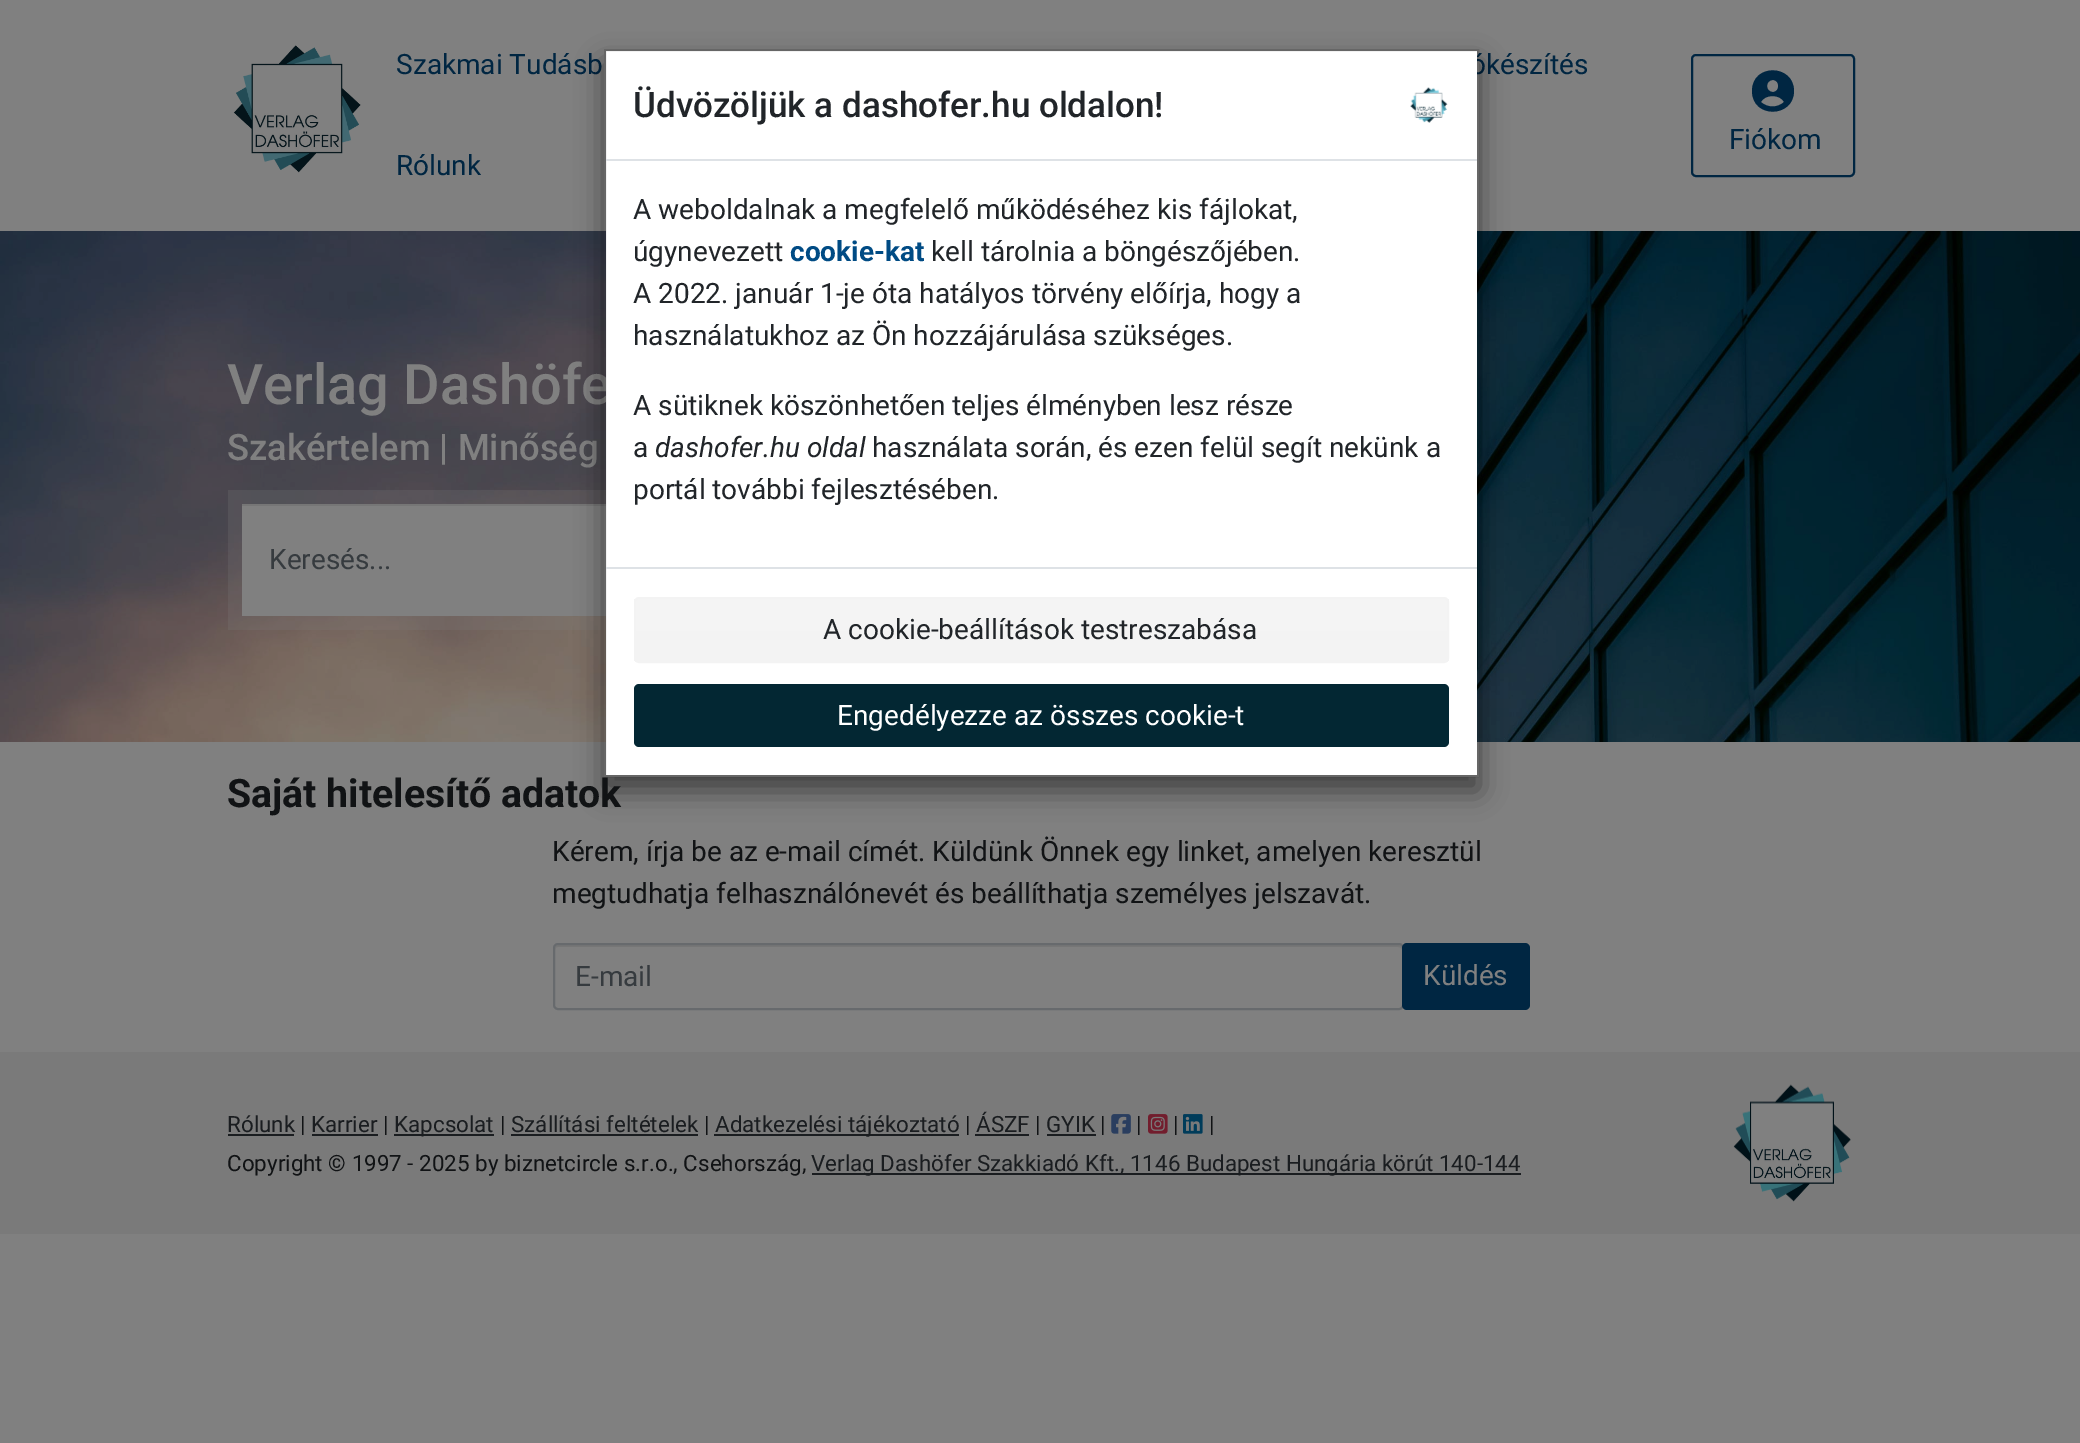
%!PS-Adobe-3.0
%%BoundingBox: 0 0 2080 1443
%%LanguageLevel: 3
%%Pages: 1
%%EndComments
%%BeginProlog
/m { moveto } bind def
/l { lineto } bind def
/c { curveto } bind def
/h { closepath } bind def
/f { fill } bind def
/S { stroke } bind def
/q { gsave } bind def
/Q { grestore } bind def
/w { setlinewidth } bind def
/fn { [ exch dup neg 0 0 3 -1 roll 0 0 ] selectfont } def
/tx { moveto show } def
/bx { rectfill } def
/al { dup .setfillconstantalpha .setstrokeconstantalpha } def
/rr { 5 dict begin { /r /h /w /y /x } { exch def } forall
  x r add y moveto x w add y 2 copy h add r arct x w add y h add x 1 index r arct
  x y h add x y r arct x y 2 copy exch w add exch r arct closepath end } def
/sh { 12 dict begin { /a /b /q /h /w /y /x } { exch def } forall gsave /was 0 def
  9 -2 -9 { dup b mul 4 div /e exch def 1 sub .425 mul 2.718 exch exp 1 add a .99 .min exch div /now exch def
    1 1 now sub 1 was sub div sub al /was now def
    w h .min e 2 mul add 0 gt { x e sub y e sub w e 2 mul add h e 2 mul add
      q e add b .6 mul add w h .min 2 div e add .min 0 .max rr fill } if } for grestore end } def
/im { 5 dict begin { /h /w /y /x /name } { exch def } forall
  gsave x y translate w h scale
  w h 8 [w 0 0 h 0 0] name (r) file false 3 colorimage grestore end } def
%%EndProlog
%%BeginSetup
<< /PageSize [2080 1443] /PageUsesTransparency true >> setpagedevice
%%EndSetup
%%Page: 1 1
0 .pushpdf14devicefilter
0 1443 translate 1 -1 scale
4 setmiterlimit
0.502 setgray
0 0 2080 1443 bx
(image0.raw) 233 45 128 128 im
/Roboto-Regular 28 fn
0 0.149 0.259 setrgbcolor
(Szakmai Tudásb) 396 74 tx
(ókészítés) 1470 74 tx
(Rólunk) 396 175 tx
2 w
1692 55 162 121 4 rr S
1784 102 m 1780 94 1765 94 1761 102 c 1767 108 1778 108 1784 102 c h 1752 91 m 1752 63 1794 64 1794 91 c 1794 118 1752 119 1752 91 c h 1773 92 m 1780 92 1780 80 1773 80 c 1765 80 1765 92 1773 92 c h f
(Fiókom) 1729 149 tx
(image1.raw) 0 231 2080 511 im
/Roboto-Medium 56 fn
0.502 setgray
(Verlag Dashöfe) 227 404 tx
/Roboto-Medium 36.4 fn
(Szakértelem | Minőség) 227 460 tx
0.2 al
228 490 378 140 bx
1 al
242 506 364 110 bx
0.463 setgray
242 504 364 2 bx
/Roboto-Regular 28 fn
0.212 0.231 0.247 setrgbcolor
(Keresés...) 269 569 tx
q
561 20 m 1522 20 l 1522 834 l 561 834 l h 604 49 m 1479 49 l 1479 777 l 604 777 l h eoclip newpath
0 setgray
604 63 875 728 0 14 0.5 sh
Q
1 setgray
606 51 871 724 bx
0.2 al
0 setgray
605 50 873 726 rectstroke
1 al
0.871 0.886 0.902 setrgbcolor
606 159 871 2 bx
/Roboto-Medium 35 fn
0.129 0.145 0.161 setrgbcolor
(Üdvözöljük a dashofer.hu oldalon!) 633 117 tx
(image2.raw) 1410 87 38 36 im
/Roboto-Regular 28 fn
(A weboldalnak a megfelelő működéséhez kis fájlokat,) 633 219 tx
(úgynevezett) 633 261 tx
/Roboto-Bold 28 fn
0 0.294 0.518 setrgbcolor
(cookie-kat) 790 261 tx
/Roboto-Regular 28 fn
0.129 0.145 0.161 setrgbcolor
(kell tárolnia a böngészőjében.) 931 261 tx
(A 2022. január 1-je óta hatályos törvény előírja, hogy a) 633 303 tx
(használatukhoz az Ön hozzájárulása szükséges.) 633 345 tx
(A sütiknek köszönhetően teljes élményben lesz része) 633 415 tx
(a) 633 457 tx
/Roboto-Italic 28 fn
(dashofer.hu oldal) 655 457 tx
/Roboto-Regular 28 fn
(használata során, és ezen felül segít nekünk a) 872 457 tx
(portál további fejlesztésében.) 633 499 tx
0.871 0.886 0.902 setrgbcolor
606 567 871 2 bx
q
634 597 815 66 5 rr clip newpath
q 634 599 m 1449 599 l 1449 662 l 634 662 l h clip newpath
<< /ShadingType 2 /ColorSpace /DeviceRGB /Coords [1041 599 1041 662] /Extend [true true] /Function << /FunctionType 2 /Domain [0 1] /C0 [0.961 0.961 0.961] /C1 [0.953 0.953 0.953] /N 1 >> >> shfill Q
Q
0.953 setgray
635 598 813 64 4 rr S
0.129 0.145 0.161 setrgbcolor
(A cookie-beállítások testreszabása) 823 639 tx
0.012 0.153 0.2 setrgbcolor
634 684 815 63 5 rr f
1 setgray
(Engedélyezze az összes cookie-t) 837 725 tx
/Roboto-Bold 39.25 fn
0.067 0.075 0.082 setrgbcolor
(Saját hitelesítő adatok) 227 807 tx
/Roboto-Regular 28 fn
(Kérem, írja be az e-mail címét. Küldünk Önnek egy linket, amelyen keresztül) 552 861 tx
(megtudhatja felhasználónevét és beállíthatja személyes jelszavát.) 552 903 tx
0.463 setgray
558 947 m 1398 947 l 1400 947 1402 948 1402 950 c 1402 947 1401 945 1398 945 c 559 945 l 556 945 555 947 555 950 c 555 948 556 947 558 947 c h f
0.404 0.416 0.427 setrgbcolor
554 944 849 65 4 rr S
0.212 0.231 0.247 setrgbcolor
(E-mail) 575 986 tx
0 0.149 0.259 setrgbcolor
1402 943 128 67 5 rr f
0.502 setgray
(Küldés) 1423 985 tx
0.478 setgray
0 1052 2080 182 bx
/Roboto-Regular 22.4 fn
0.102 0.114 0.125 setrgbcolor
(Rólunk) 227 1132 tx
228 1134 66 2 bx
0.067 0.075 0.082 setrgbcolor
(|) 300 1132 tx
0.102 0.114 0.125 setrgbcolor
(Karrier) 311 1132 tx
312 1134 66 2 bx
0.067 0.075 0.082 setrgbcolor
(|) 383 1132 tx
0.102 0.114 0.125 setrgbcolor
394 1134 100 2 bx
(Kapcsolat) 394 1132 tx
0.067 0.075 0.082 setrgbcolor
(|) 500 1132 tx
0.102 0.114 0.125 setrgbcolor
(Szállítási feltételek) 511 1132 tx
511 1134 187 2 bx
0.067 0.075 0.082 setrgbcolor
(|) 704 1132 tx
0.102 0.114 0.125 setrgbcolor
714 1134 245 2 bx
(Adatkezelési tájékoztató) 715 1132 tx
0.067 0.075 0.082 setrgbcolor
(|) 965 1132 tx
0.102 0.114 0.125 setrgbcolor
(ÁSZF) 976 1132 tx
975 1134 54 2 bx
0.067 0.075 0.082 setrgbcolor
(|) 1035 1132 tx
0.102 0.114 0.125 setrgbcolor
(GYIK) 1046 1132 tx
1047 1134 49 2 bx
0.067 0.075 0.082 setrgbcolor
(|) 1100 1132 tx
(image3.raw) 1111 1114 20 20 im
(|) 1136 1132 tx
(image4.raw) 1148 1114 20 20 im
(|) 1173 1132 tx
(image5.raw) 1183 1114 20 20 im
(|) 1209 1132 tx
(Copyright © 1997 - 2025 by biznetcircle s.r.o., Csehország,) 227 1171 tx
0.102 0.114 0.125 setrgbcolor
812 1173 709 2 bx
(Verlag Dashöfer Szakkiadó Kft., 1146 Budapest Hungária körút 140-144) 811 1171 tx
(image6.raw) 1733 1084 118 118 im
.poppdf14devicefilter showpage
%%EOF
